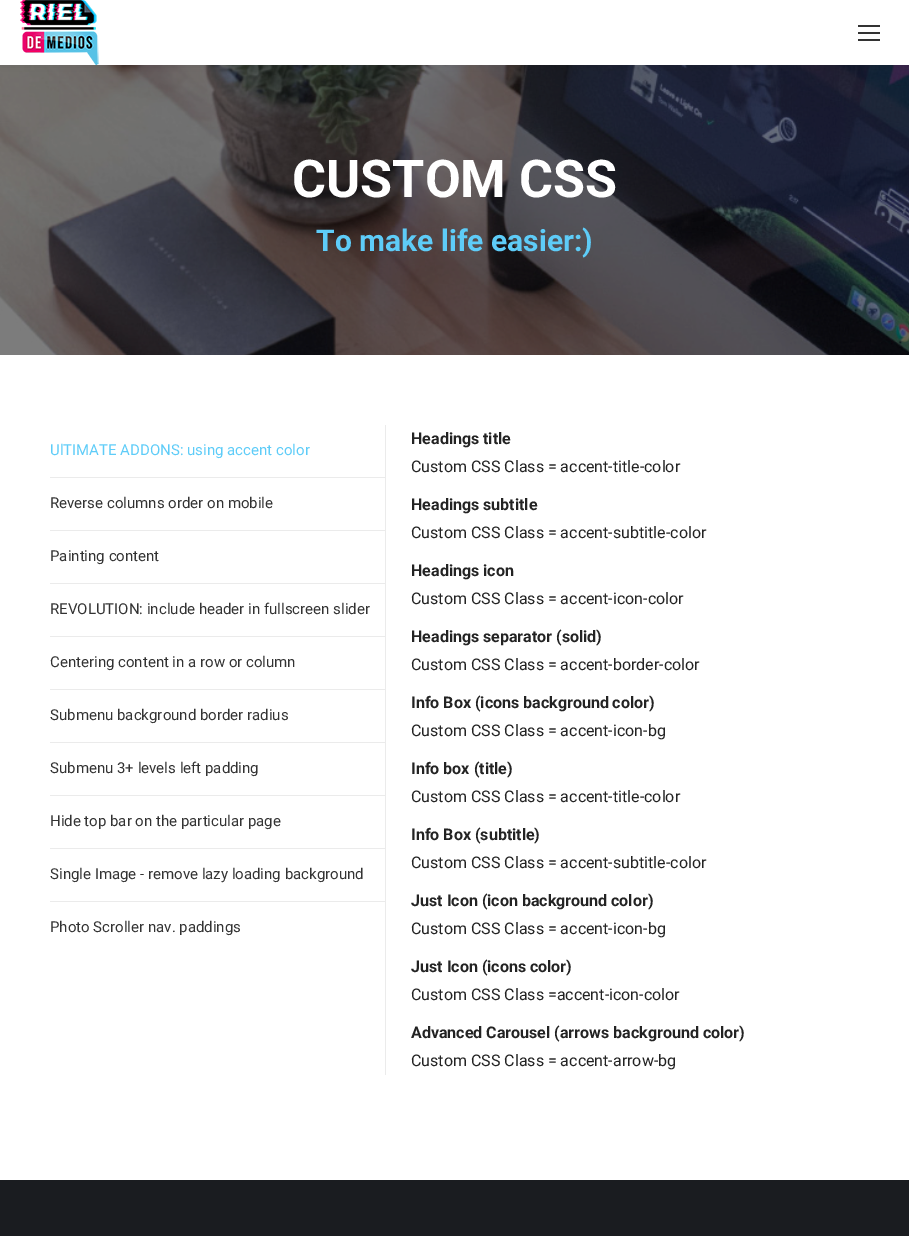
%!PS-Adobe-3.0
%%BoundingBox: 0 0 909 1236
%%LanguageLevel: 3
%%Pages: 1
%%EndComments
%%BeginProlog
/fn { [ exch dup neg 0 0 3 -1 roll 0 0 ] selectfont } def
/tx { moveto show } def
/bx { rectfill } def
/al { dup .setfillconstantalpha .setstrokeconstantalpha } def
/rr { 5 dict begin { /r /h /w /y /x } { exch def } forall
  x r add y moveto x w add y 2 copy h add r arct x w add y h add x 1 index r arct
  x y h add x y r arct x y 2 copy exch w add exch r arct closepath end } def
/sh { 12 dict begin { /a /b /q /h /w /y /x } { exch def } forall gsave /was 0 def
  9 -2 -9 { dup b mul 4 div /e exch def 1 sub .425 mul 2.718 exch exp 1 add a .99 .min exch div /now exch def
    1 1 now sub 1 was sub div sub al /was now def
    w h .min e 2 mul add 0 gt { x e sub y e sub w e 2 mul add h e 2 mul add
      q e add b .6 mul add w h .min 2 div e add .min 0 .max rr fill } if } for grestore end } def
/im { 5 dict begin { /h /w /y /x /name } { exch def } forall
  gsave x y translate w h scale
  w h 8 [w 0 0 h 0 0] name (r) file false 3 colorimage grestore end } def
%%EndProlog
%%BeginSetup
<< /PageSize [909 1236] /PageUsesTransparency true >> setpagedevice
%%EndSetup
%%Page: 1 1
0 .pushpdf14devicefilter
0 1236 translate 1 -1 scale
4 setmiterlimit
1 setgray
0 0 909 1236 bx
(image1.raw) 0 65 909 290 im
0 setgray
-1 -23 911 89 0 7.5 0.07 sh
1 setgray
0 0 909 65 bx
(image0.raw) 20 0 79 65 im
0.2 setgray
858 25 22 2 bx
858 32 22 2 bx
858 39 22 2 bx
/Roboto-Bold 52 fn
1 setgray
(CUSTOM CSS) 292 197 tx
/Roboto-Bold 30 fn
0.369 0.8 0.973 setrgbcolor
(To make life easier:\)) 316 251 tx
0.922 setgray
385 425 1 650 bx
/Roboto-Regular 15 fn
0.369 0.8 0.973 setrgbcolor
(UlTIMATE ADDONS: using accent color) 50 455 tx
0.922 setgray
50 477 335 1 bx
0.2 setgray
(Reverse columns order on mobile) 50 508 tx
0.922 setgray
50 530 335 1 bx
0.2 setgray
(Painting content) 50 561 tx
0.922 setgray
50 583 335 1 bx
0.2 setgray
(REVOLUTION: include header in fullscreen slider) 50 614 tx
0.922 setgray
50 636 335 1 bx
0.2 setgray
(Centering content in a row or column) 50 667 tx
0.922 setgray
50 689 335 1 bx
0.2 setgray
(Submenu background border radius) 50 720 tx
0.922 setgray
50 742 335 1 bx
0.2 setgray
(Submenu 3+ levels left padding) 50 773 tx
0.922 setgray
50 795 335 1 bx
0.2 setgray
(Hide top bar on the particular page) 50 826 tx
0.922 setgray
50 848 335 1 bx
0.2 setgray
(Single Image - remove lazy loading background) 50 879 tx
0.922 setgray
50 901 335 1 bx
0.2 setgray
(Photo Scroller nav. paddings) 50 932 tx
/Roboto-Bold 16 fn
0.137 setgray
(Headings title) 411 444 tx
/Roboto-Regular 16 fn
(Custom CSS Class = accent-title-color) 411 472 tx
/Roboto-Bold 16 fn
(Headings subtitle) 411 510 tx
/Roboto-Regular 16 fn
(Custom CSS Class = accent-subtitle-color) 411 538 tx
/Roboto-Bold 16 fn
(Headings icon) 411 576 tx
/Roboto-Regular 16 fn
(Custom CSS Class = accent-icon-color) 411 604 tx
/Roboto-Bold 16 fn
(Headings separator \(solid\)) 411 642 tx
/Roboto-Regular 16 fn
(Custom CSS Class = accent-border-color) 411 670 tx
/Roboto-Bold 16 fn
(Info Box \(icons background color\)) 411 708 tx
/Roboto-Regular 16 fn
(Custom CSS Class = accent-icon-bg) 411 736 tx
/Roboto-Bold 16 fn
(Info box \(title\)) 411 774 tx
/Roboto-Regular 16 fn
(Custom CSS Class = accent-title-color) 411 802 tx
/Roboto-Bold 16 fn
(Info Box \(subtitle\)) 411 840 tx
/Roboto-Regular 16 fn
(Custom CSS Class = accent-subtitle-color) 411 868 tx
/Roboto-Bold 16 fn
(Just Icon \(icon background color\)) 411 906 tx
/Roboto-Regular 16 fn
(Custom CSS Class = accent-icon-bg) 411 934 tx
/Roboto-Bold 16 fn
(Just Icon \(icons color\)) 411 972 tx
/Roboto-Regular 16 fn
(Custom CSS Class =accent-icon-color) 411 1000 tx
/Roboto-Bold 16 fn
(Advanced Carousel \(arrows background color\)) 411 1038 tx
/Roboto-Regular 16 fn
(Custom CSS Class = accent-arrow-bg) 411 1066 tx
0.102 0.11 0.125 setrgbcolor
0 1180 909 56 bx
.poppdf14devicefilter showpage
%%EOF
